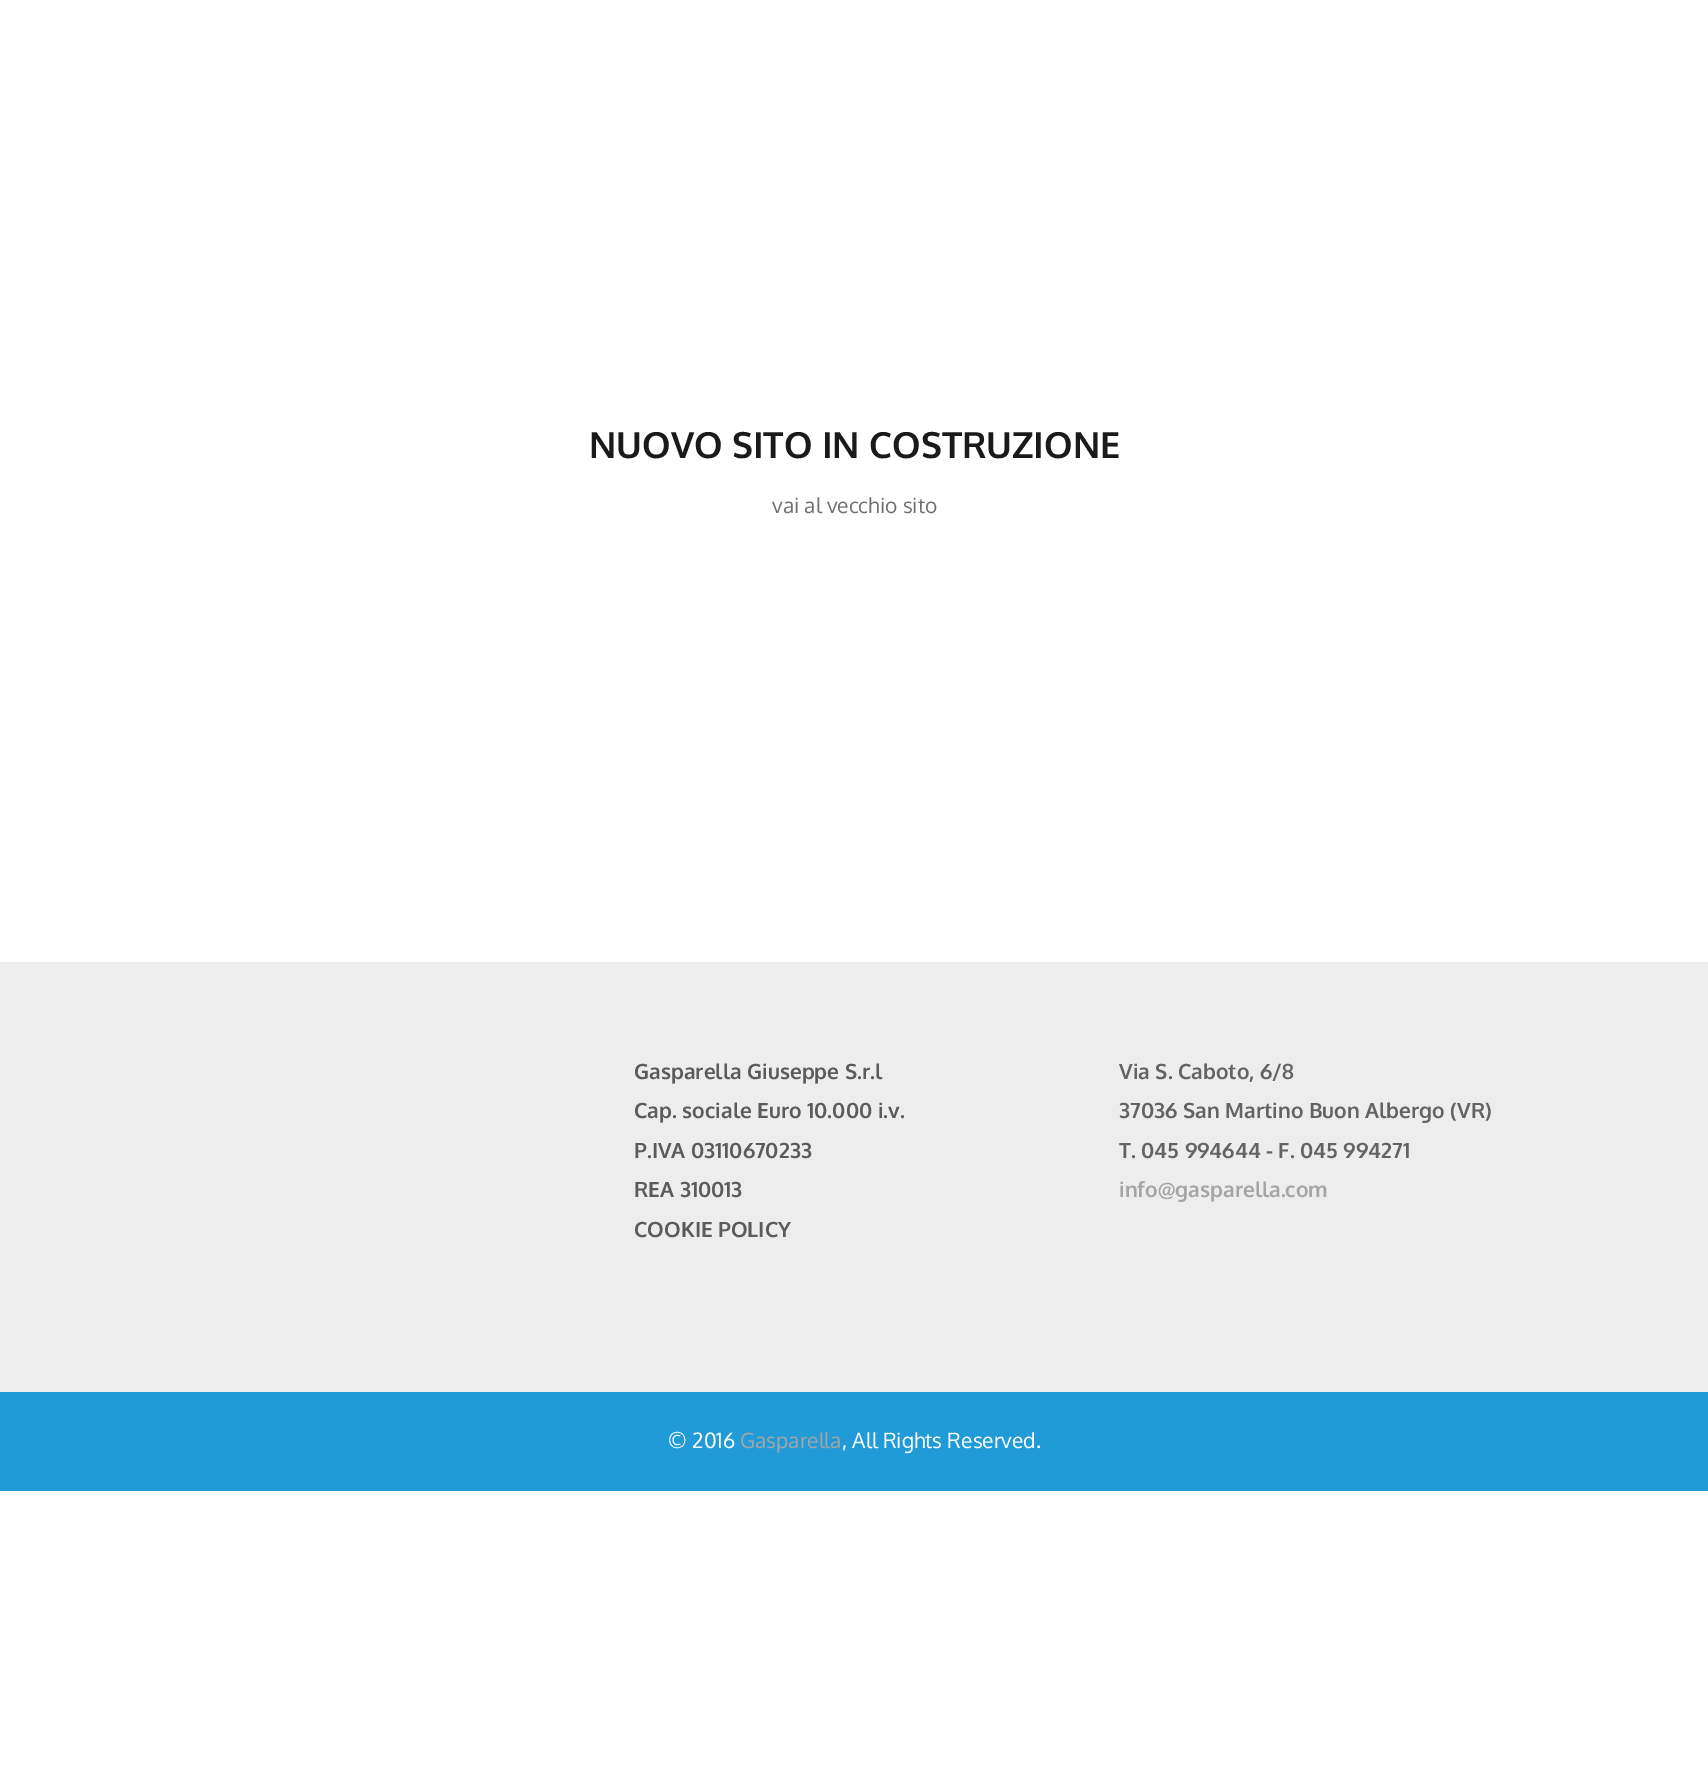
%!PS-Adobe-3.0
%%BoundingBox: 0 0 1708 1787
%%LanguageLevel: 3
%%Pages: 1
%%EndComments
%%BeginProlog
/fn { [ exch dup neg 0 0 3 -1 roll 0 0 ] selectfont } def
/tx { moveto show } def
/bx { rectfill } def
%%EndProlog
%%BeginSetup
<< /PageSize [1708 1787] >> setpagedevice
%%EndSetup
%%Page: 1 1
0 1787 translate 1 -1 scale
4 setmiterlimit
1 setgray
0 0 1708 1787 bx
/Oxygen-Bold 36 fn
0.102 setgray
(NUOVO SITO IN COSTRUZIONE) 589 458 tx
/Oxygen-Regular 21 fn
0.439 setgray
(vai al vecchio sito) 772 513 tx
0.929 setgray
0 962 1708 430 bx
/Oxygen-Bold 21 fn
0.357 setgray
(Gasparella Giuseppe S.r.l) 634 1079 tx
(Cap. sociale Euro 10.000 i.v.) 634 1118 tx
(P.IVA 03110670233) 634 1158 tx
(REA 310013) 634 1197 tx
(COOKIE POLICY) 634 1237 tx
0.388 setgray
(Via S. Caboto, 6/8) 1119 1079 tx
(37036 San Martino Buon Albergo \(VR\)) 1119 1118 tx
(T. 045 994644 - F. 045 994271) 1119 1158 tx
0.647 setgray
(info@gasparella.com) 1119 1197 tx
0.125 0.608 0.843 setrgbcolor
0 1392 1708 99 bx
/Oxygen-Regular 21 fn
1 setgray
(© 2016) 668 1448 tx
0.647 setgray
(Gasparella) 740 1448 tx
1 setgray
(, All Rights Reserved.) 842 1448 tx
showpage
%%EOF
